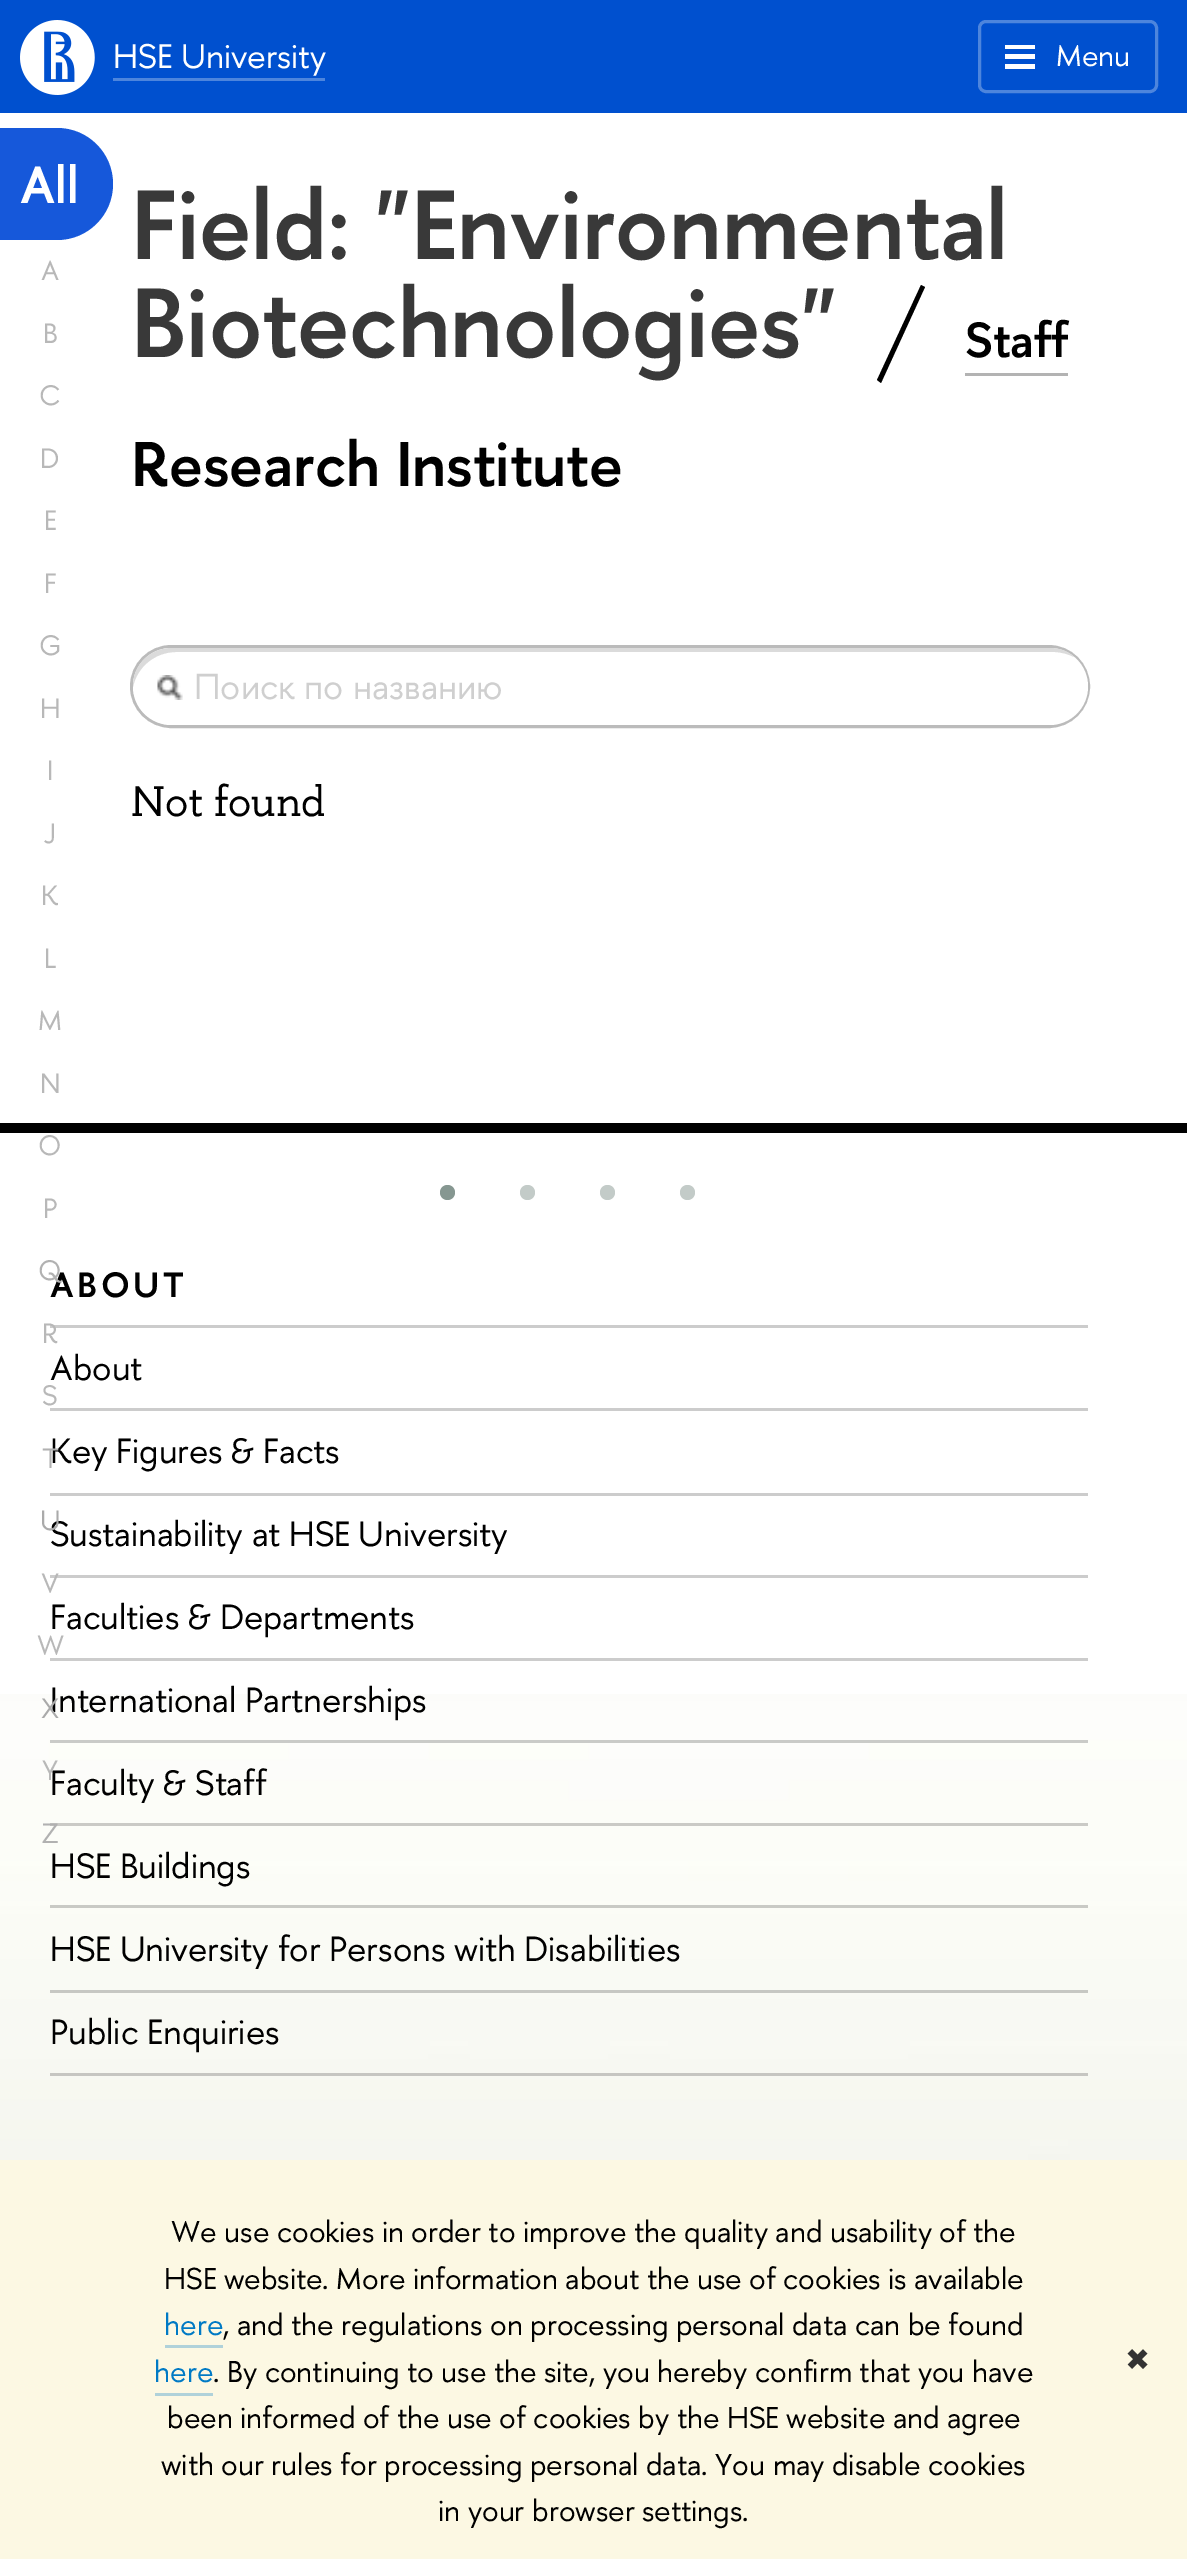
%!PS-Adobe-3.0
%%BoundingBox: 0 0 1187 2559
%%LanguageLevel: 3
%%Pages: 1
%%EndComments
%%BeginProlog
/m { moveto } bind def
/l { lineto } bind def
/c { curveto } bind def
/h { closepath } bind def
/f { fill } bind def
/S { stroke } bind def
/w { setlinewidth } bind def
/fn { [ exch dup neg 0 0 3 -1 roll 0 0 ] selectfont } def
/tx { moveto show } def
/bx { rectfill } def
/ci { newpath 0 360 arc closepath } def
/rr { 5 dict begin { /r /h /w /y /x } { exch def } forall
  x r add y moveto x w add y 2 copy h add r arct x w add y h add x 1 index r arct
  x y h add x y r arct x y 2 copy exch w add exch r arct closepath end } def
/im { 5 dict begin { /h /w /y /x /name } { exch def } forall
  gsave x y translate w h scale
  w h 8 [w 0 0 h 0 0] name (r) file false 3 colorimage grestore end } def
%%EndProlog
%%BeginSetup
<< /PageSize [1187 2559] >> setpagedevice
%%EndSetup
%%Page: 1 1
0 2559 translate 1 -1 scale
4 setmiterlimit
1 setgray
0 0 1187 2559 bx
(image0.raw) 0 1694 1187 466 im
0 0.314 0.812 setrgbcolor
0 0 1187 113 bx
(image1.raw) 20 20 75 75 im
0.302 0.522 0.867 setrgbcolor
113 78 212 3 bx
/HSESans-Regular 34 fn
1 setgray
(HSE University) 113 68 tx
0.302 0.522 0.867 setrgbcolor
3 w
979.5 21.5 177 70 6.5 rr S
1 setgray
1005 45 30 4 bx
1005 54 30 5 bx
1005 64 30 5 bx
/HSESans-Regular 30 fn
(Menu) 1056 66 tx
0.086 0.345 0.855 setrgbcolor
0 128 m 57 128 l 88 128 113 153 113 184 c 113 215 88 240 57 240 c 0 240 l h f
/HSESans-SemiBold 52 fn
1 setgray
(All) 20 203 tx
/HSESans-Regular 28 fn
0.722 setgray
(A) 41 280 tx
(B) 43 343 tx
(C) 39 405 tx
(D) 40 468 tx
(E) 44 530 tx
(F) 44 593 tx
(G) 39 655 tx
(H) 40 718 tx
(I) 47 780 tx
(J) 44 843 tx
(K) 41 905 tx
(L) 44 968 tx
(M) 38 1030 tx
(N) 40 1093 tx
(O) 38 1155 tx
(P) 43 1218 tx
/HSESans-SemiBold 35 fn
0 setgray
50 1297 m 3.5 0 (ABOUT) ashow
/HSESans-Regular 28 fn
0.694 setgray
(Q) 38 1280 tx
0.8 setgray
50 1325 1038 3 bx
0.722 setgray
(R) 42 1343 tx
(S) 42 1405 tx
/HSESans-Regular 35 fn
0 setgray
(Key Figures & Facts) 50 1463 tx
/HSESans-Regular 28 fn
0.694 setgray
(T) 42 1468 tx
/HSESans-Regular 35 fn
0 setgray
(Sustainability at HSE University) 50 1546 tx
/HSESans-Regular 28 fn
0.667 setgray
(U) 40 1530 tx
0.8 setgray
50 1575 1038 3 bx
0.722 setgray
(V) 41 1593 tx
(W) 37 1655 tx
/HSESans-Regular 35 fn
0 setgray
(International Partnerships) 50 1712 tx
/HSESans-Regular 28 fn
0.667 setgray
(X) 41 1718 tx
/HSESans-Regular 35 fn
0 setgray
(Faculty & Staff) 50 1795 tx
/HSESans-Regular 28 fn
0.722 setgray
(Y) 42 1780 tx
0.792 0.792 0.776 setrgbcolor
50 1823 1038 3 bx
0.694 setgray
(Z) 42 1843 tx
/HSESans-SemiBold 97.75 fn
0.224 setgray
(Field: "Environmental) 131 259 tx
(Biotechnologies") 131 357 tx
0 setgray
921 285 m 925 287 l 881 383 l 877 380 l h f
/HSESans-SemiBold 49 fn
(Staff) 965 357 tx
0.702 setgray
965 373 103 3 bx
/HSESans-SemiBold 63 fn
0 setgray
(Research Institute) 131 486 tx
0.733 setgray
131.5 646.5 957 80 40 rr S
1 setgray
133 648 955 77 38.5 rr f
(image2.raw) 157 675 26 25 im
0.859 setgray
176 652 m 1054 652 l 1061 652 1068 654 1074 657 c 1068 651 1059 648 1050 648 c 172 648 l 150 648 133 665 133 686 c 133 687 l 137 667 155 652 176 652 c h f
/HSESans-Regular 36.1 fn
0.812 setgray
(Поиск по названию) 194 699 tx
/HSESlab-Regular 42.5 fn
0 setgray
(Not found) 131 816 tx
0 1123 1187 10 bx
0.525 0.592 0.569 setrgbcolor
447.5 1192.5 7.5 ci f
0.765 0.796 0.784 setrgbcolor
527.5 1192.5 7.5 ci f
607.5 1192.5 7.5 ci f
687.5 1192.5 7.5 ci f
0.8 setgray
50 1408 1038 3 bx
/HSESans-Regular 35 fn
0 setgray
(About) 50 1380 tx
0.8 setgray
50 1493 1038 3 bx
50 1658 1038 3 bx
0 setgray
(Faculties & Departments) 50 1629 tx
0.792 0.796 0.784 setrgbcolor
50 1740 1038 3 bx
0.788 0.792 0.773 setrgbcolor
50 1905 1038 3 bx
0 setgray
(HSE Buildings) 50 1878 tx
0.78 0.784 0.765 setrgbcolor
50 1990 1038 3 bx
0 setgray
(HSE University for Persons with Disabilities) 50 1961 tx
0.776 0.776 0.761 setrgbcolor
50 2073 1038 3 bx
0 setgray
(Public Enquiries) 50 2044 tx
0.988 0.973 0.89 setrgbcolor
0 2160 1187 399 bx
/HSESans-Regular 30 fn
0 setgray
(We use cookies in order to improve the quality and usability of the) 171 2242 tx
(HSE website. More information about the use of cookies is available) 164 2289 tx
0 0.478 0.773 setrgbcolor
(here) 164 2335 tx
0.69 0.824 0.855 setrgbcolor
165 2345 58 3 bx
0 setgray
(, and the regulations on processing personal data can be found) 223 2335 tx
0 0.478 0.773 setrgbcolor
(here) 154 2382 tx
0.69 0.824 0.855 setrgbcolor
155 2393 58 3 bx
0 setgray
(. By continuing to use the site, you hereby confirm that you have) 213 2382 tx
(been informed of the use of cookies by the HSE website and agree) 167 2428 tx
(with our rules for processing personal data. You may disable cookies) 161 2475 tx
(in your browser settings.) 438 2521 tx
/DejaVuSans-Regular 30 fn
0.2 setgray
(✖) 1125 2370 tx
showpage
%%EOF
